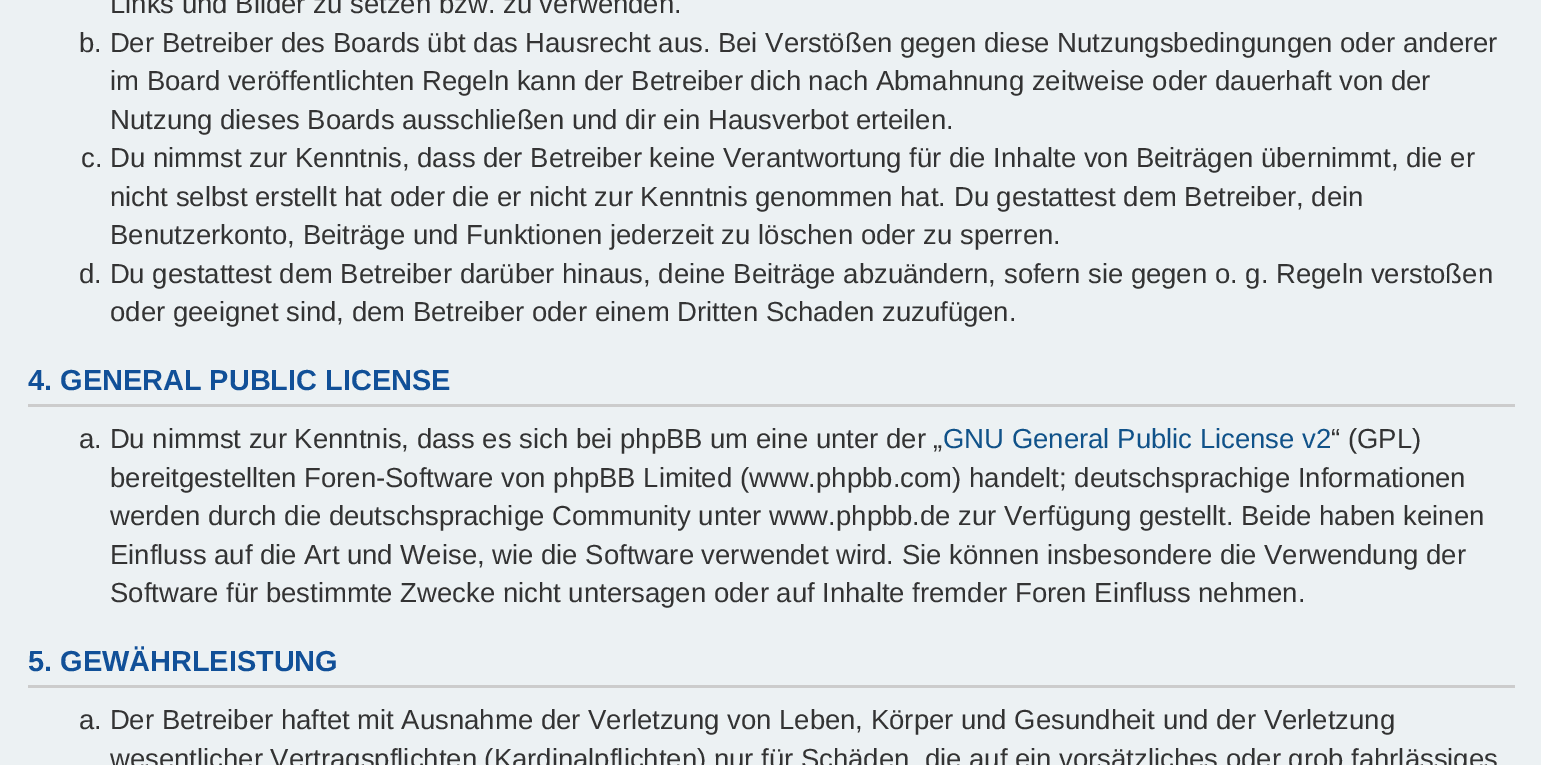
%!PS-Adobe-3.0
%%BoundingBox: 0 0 1541 765
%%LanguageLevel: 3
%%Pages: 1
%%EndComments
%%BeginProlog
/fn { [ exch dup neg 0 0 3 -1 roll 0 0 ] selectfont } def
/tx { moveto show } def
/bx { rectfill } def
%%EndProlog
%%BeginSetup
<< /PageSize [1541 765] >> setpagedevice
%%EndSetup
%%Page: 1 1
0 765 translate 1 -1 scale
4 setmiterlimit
0.925 0.945 0.953 setrgbcolor
0 0 1541 765 bx
/LiberationSans-Regular 27.5 fn
0.2 setgray
(Links und Bilder zu setzen bzw. zu verwenden.) 110 13 tx
(b. Der Betreiber des Boards übt das Hausrecht aus. Bei Verstößen gegen diese Nutzungsbedingungen oder anderer) 79 52 tx
(im Board veröffentlichten Regeln kann der Betreiber dich nach Abmahnung zeitweise oder dauerhaft von der) 110 90 tx
(Nutzung dieses Boards ausschließen und dir ein Hausverbot erteilen.) 110 129 tx
(c. Du nimmst zur Kenntnis, dass der Betreiber keine Verantwortung für die Inhalte von Beiträgen übernimmt, die er) 81 167 tx
(nicht selbst erstellt hat oder die er nicht zur Kenntnis genommen hat. Du gestattest dem Betreiber, dein) 110 206 tx
(Benutzerkonto, Beiträge und Funktionen jederzeit zu löschen oder zu sperren.) 110 244 tx
(d. Du gestattest dem Betreiber darüber hinaus, deine Beiträge abzuändern, sofern sie gegen o. g. Regeln verstoßen) 79 283 tx
(oder geeignet sind, dem Betreiber oder einem Dritten Schaden zuzufügen.) 110 321 tx
0.8 setgray
28 404 1487 3 bx
/LiberationSans-Bold 28.9 fn
0.067 0.314 0.596 setrgbcolor
(4. GENERAL PUBLIC LICENSE) 28 390 tx
/LiberationSans-Regular 27.5 fn
0.2 setgray
(a. Du nimmst zur Kenntnis, dass es sich bei phpBB um eine unter der „) 79 448 tx
0.063 0.322 0.537 setrgbcolor
(GNU General Public License v2) 943 448 tx
0.2 setgray
(“ \(GPL\)) 1331 448 tx
(bereitgestellten Foren-Software von phpBB Limited \(www.phpbb.com\) handelt; deutschsprachige Informationen) 110 487 tx
(werden durch die deutschsprachige Community unter www.phpbb.de zur Verfügung gestellt. Beide haben keinen) 110 525 tx
(Einfluss auf die Art und Weise, wie die Software verwendet wird. Sie können insbesondere die Verwendung der) 110 564 tx
(Software für bestimmte Zwecke nicht untersagen oder auf Inhalte fremder Foren Einfluss nehmen.) 110 602 tx
0.8 setgray
28 685 1487 3 bx
/LiberationSans-Bold 28.9 fn
0.067 0.314 0.596 setrgbcolor
(5. GEWÄHRLEISTUNG) 28 671 tx
/LiberationSans-Regular 27.5 fn
0.2 setgray
(a. Der Betreiber haftet mit Ausnahme der Verletzung von Leben, Körper und Gesundheit und der Verletzung) 79 729 tx
(wesentlicher Vertragspflichten \(Kardinalpflichten\) nur für Schäden, die auf ein vorsätzliches oder grob fahrlässiges) 110 768 tx
showpage
%%EOF
